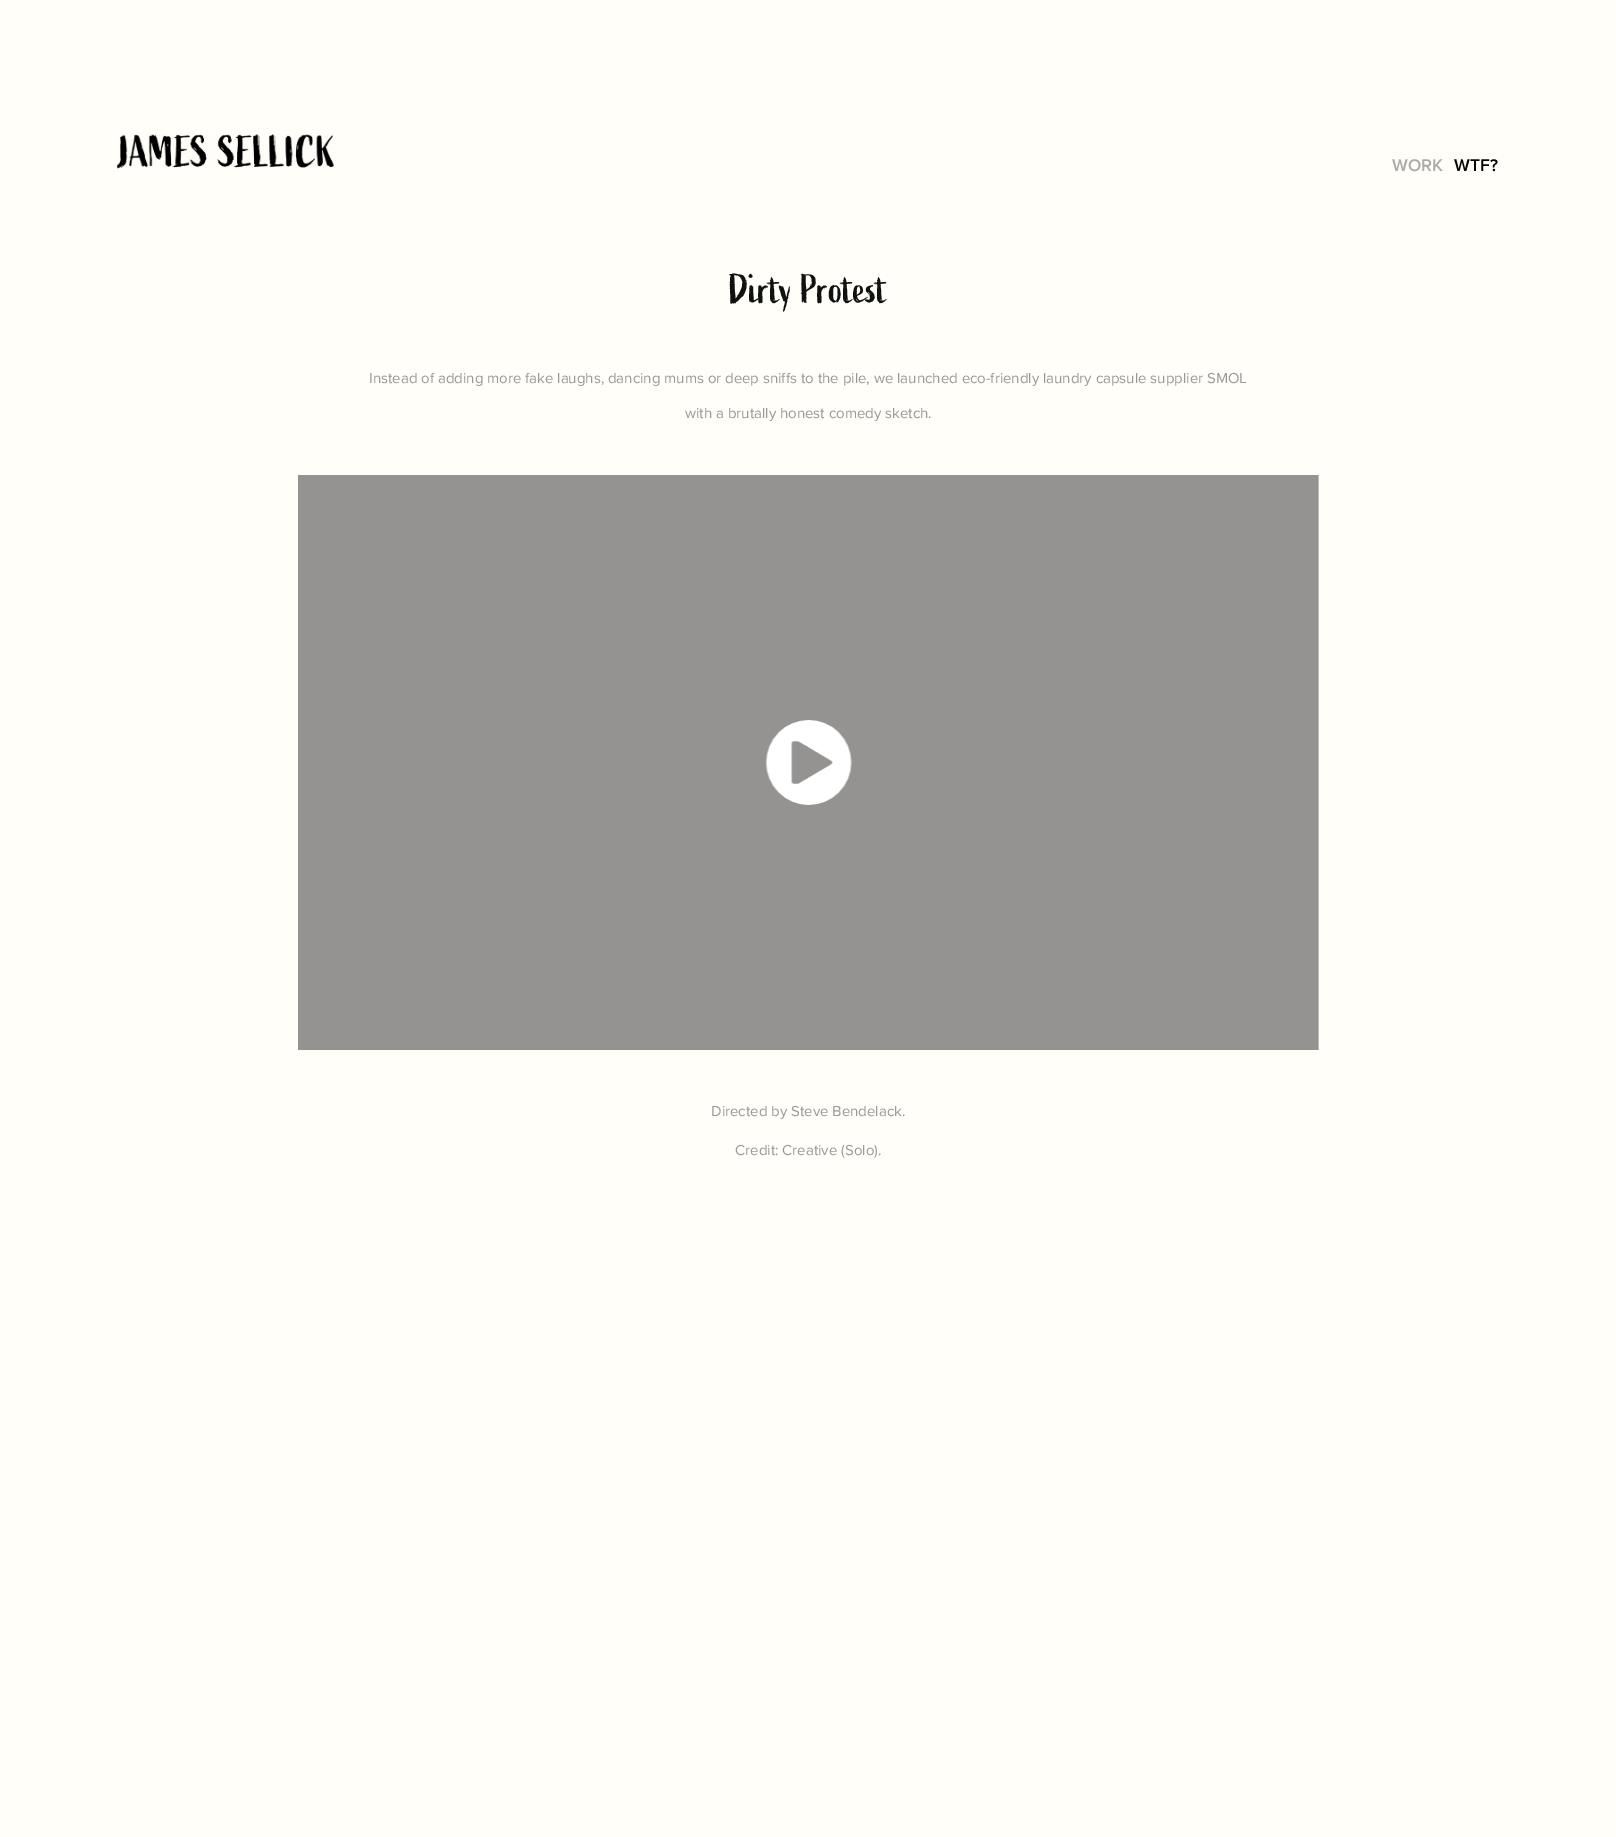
%!PS-Adobe-3.0
%%BoundingBox: 0 0 1616 1837
%%LanguageLevel: 3
%%Pages: 1
%%EndComments
%%BeginProlog
/fn { [ exch dup neg 0 0 3 -1 roll 0 0 ] selectfont } def
/tx { moveto show } def
/bx { rectfill } def
/im { 5 dict begin { /h /w /y /x /name } { exch def } forall
  gsave x y translate w h scale
  w h 8 [w 0 0 h 0 0] name (r) file false 3 colorimage grestore end } def
%%EndProlog
%%BeginSetup
<< /PageSize [1616 1837] >> setpagedevice
%%EndSetup
%%Page: 1 1
0 1837 translate 1 -1 scale
4 setmiterlimit
1 0.996 0.976 setrgbcolor
0 0 1616 1837 bx
(image0.raw) 116 134 220 35 im
/ProximaNova-SemiBold 17.5 fn
0.667 setgray
(WORK) 1392 171 tx
0.016 setgray
(WTF?) 1454 171 tx
/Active-Regular 40 fn
0.067 setgray
(Dirty Protest) 729 302 tx
/ProximaNova-Regular 15 fn
0.6 setgray
(Instead of adding more fake laughs, dancing mums or deep sniffs to the pile, we launched eco-friendly laundry capsule supplier SMOL) 369 383 tx
(with a brutally honest comedy sketch.) 685 418 tx
(image1.raw) 298 475 1021 575 im
(Directed by Steve Bendelack.) 711 1116 tx
(Credit: Creative \(Solo\).) 735 1155 tx
showpage
%%EOF
